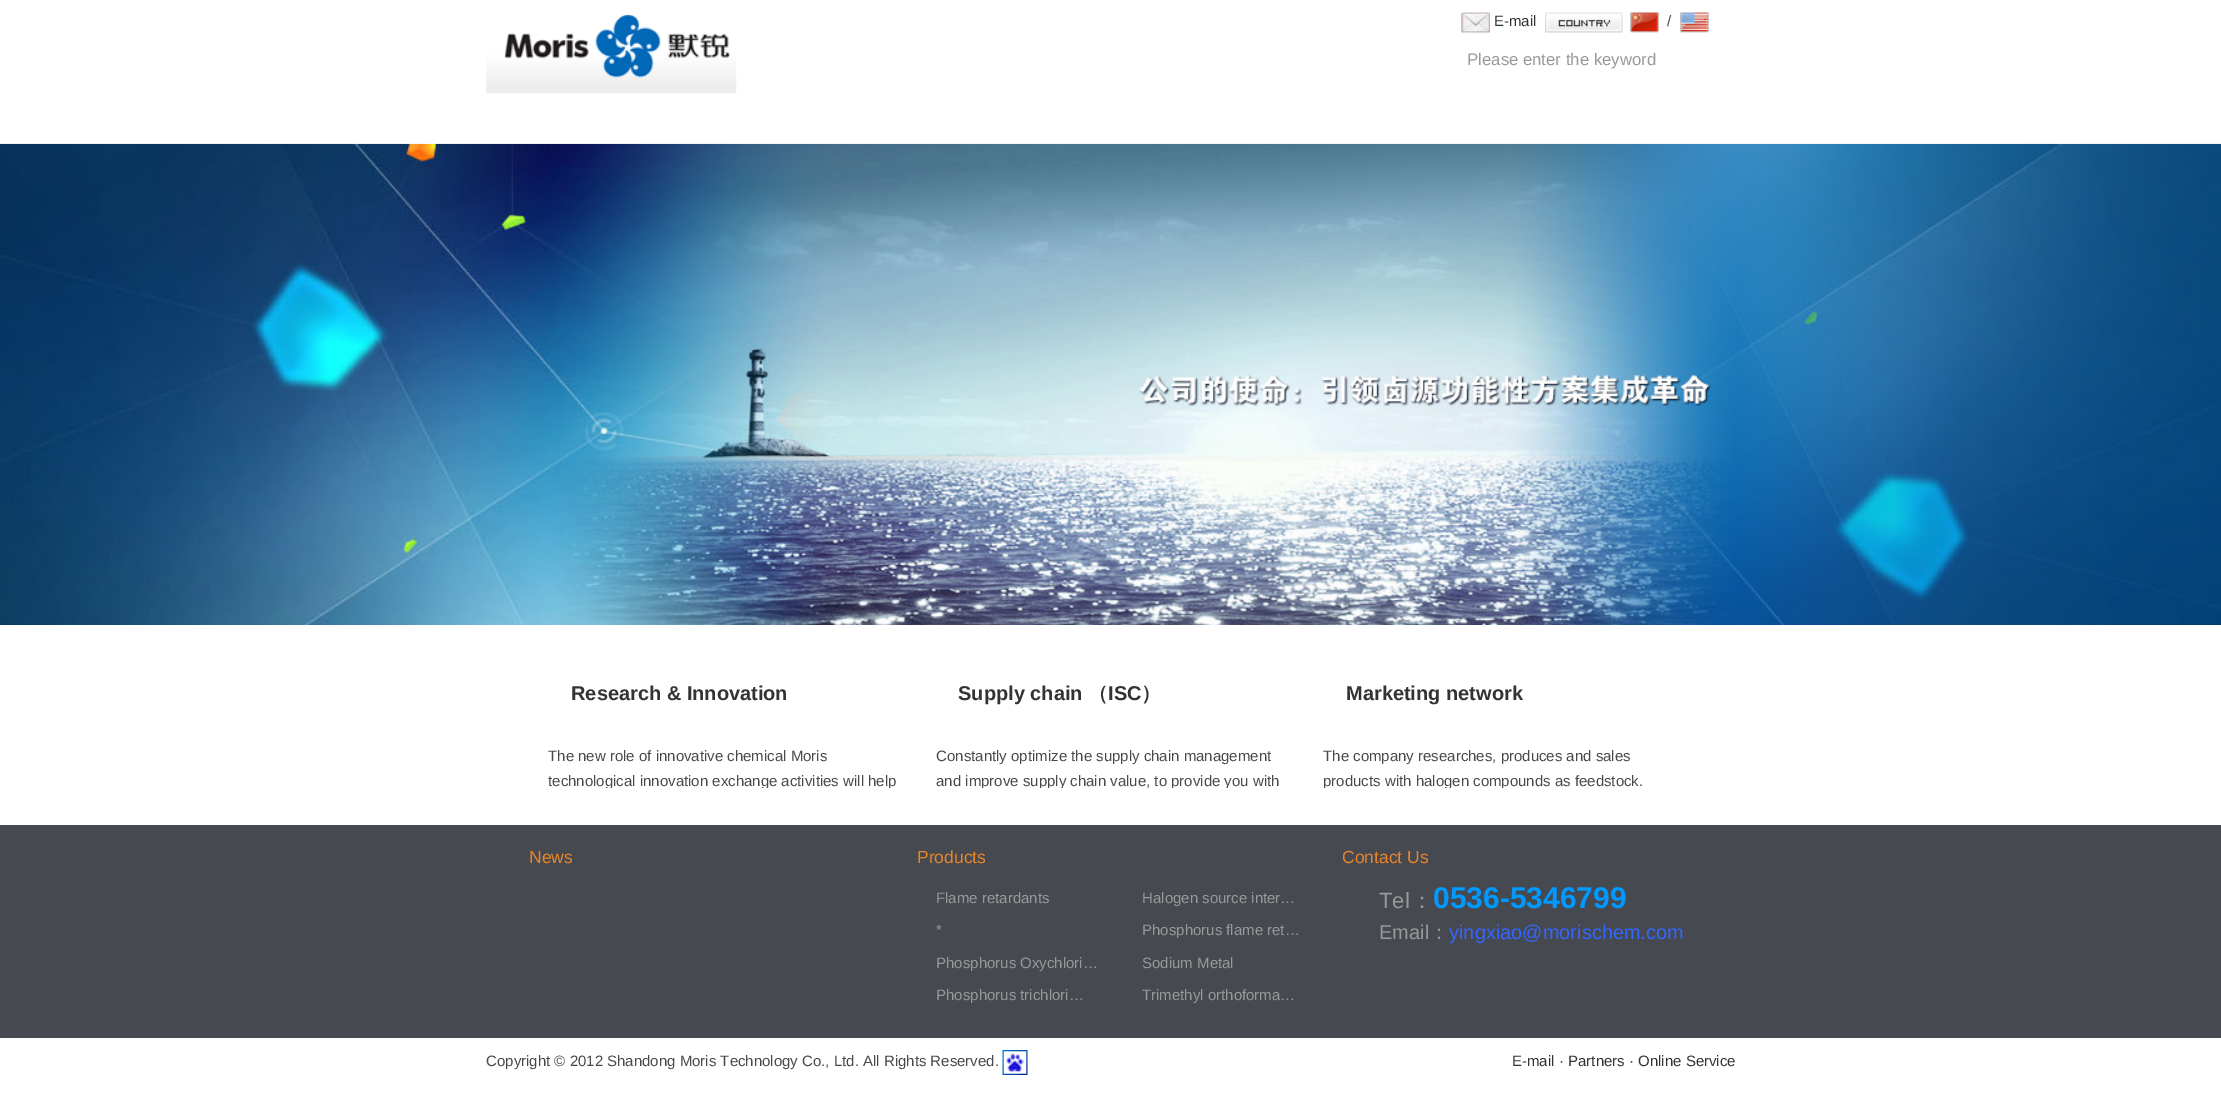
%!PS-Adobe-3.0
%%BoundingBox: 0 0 2221 1106
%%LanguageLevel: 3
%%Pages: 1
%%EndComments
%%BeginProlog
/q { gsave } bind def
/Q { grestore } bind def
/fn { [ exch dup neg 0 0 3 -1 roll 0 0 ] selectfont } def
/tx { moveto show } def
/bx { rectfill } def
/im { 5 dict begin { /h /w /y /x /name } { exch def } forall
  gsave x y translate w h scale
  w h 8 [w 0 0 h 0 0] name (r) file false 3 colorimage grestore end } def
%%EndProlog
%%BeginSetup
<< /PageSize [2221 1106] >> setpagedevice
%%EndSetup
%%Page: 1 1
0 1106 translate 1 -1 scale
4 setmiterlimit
1 setgray
0 0 2221 1106 bx
(image0.raw) 486 14 251 80 im
(image1.raw) 1461 12 29 21 im
/LiberationSans-Regular 15 fn
0.2 setgray
(E-mail) 1494 26 tx
(image2.raw) 1545 12 78 21 im
(image3.raw) 1630 12 29 21 im
0.286 setgray
(/) 1667 26 tx
(image4.raw) 1680 12 29 21 im
/LiberationSans-Regular 16.75 fn
0.6 setgray
(Please enter the keyword) 1467 65 tx
(image5.raw) 0 143 2221 482 im
/LiberationSans-Bold 20 fn
0.2 setgray
(Research & Innovation) 571 700 tx
/LiberationSans-Regular 15 fn
0.286 setgray
(The new role of innovative chemical Moris) 548 761 tx
q
530 650 388 138 rectclip
(technological innovation exchange activities will help) 548 786 tx
Q
/LiberationSans-Bold 20 fn
0.2 setgray
(Supply chain) 958 700 tx
/WenQuanYiZenHei-Bold 20 fn
(（) 1088 700 tx
/LiberationSans-Bold 20 fn
(ISC) 1108 700 tx
/WenQuanYiZenHei-Bold 20 fn
(）) 1141 700 tx
/LiberationSans-Regular 15 fn
0.286 setgray
(Constantly optimize the supply chain management) 936 761 tx
q
918 650 387 138 rectclip
(and improve supply chain value, to provide you with) 936 786 tx
Q
/LiberationSans-Bold 20 fn
0.2 setgray
(Marketing network) 1346 700 tx
/LiberationSans-Regular 15 fn
0.286 setgray
(The company researches, produces and sales) 1323 761 tx
q
1305 650 388 138 rectclip
(products with halogen compounds as feedstock.) 1323 786 tx
Q
0.275 0.286 0.314 setrgbcolor
0 825 2221 213 bx
/LiberationSans-Regular 17.5 fn
0.914 0.525 0.161 setrgbcolor
(News) 529 863 tx
(Products) 917 863 tx
/LiberationSans-Regular 15 fn
0.6 setgray
(Flame retardants) 936 903 tx
(Halogen source inter…) 1142 903 tx
(*) 936 935 tx
(Phosphorus flame ret…) 1142 935 tx
(Phosphorus Oxychlori…) 936 968 tx
(Sodium Metal) 1142 968 tx
(Phosphorus trichlori…) 936 1000 tx
(Trimethyl orthoforma…) 1142 1000 tx
q
1343 844 350 194 rectclip
/LiberationSans-Regular 17.5 fn
0.914 0.525 0.161 setrgbcolor
(Contact Us) 1342 863 tx
Q
/LiberationSans-Regular 22 fn
(Tel) 1379 908 tx
/WenQuanYiZenHei-Medium 22 fn
(：) 1411 908 tx
/LiberationSans-Bold 30 fn
0 0.6 1 setrgbcolor
(0536-5346799) 1433 908 tx
/LiberationSans-Regular 20 fn
0.6 setgray
(Email) 1379 939 tx
/WenQuanYiZenHei-Medium 20 fn
(：) 1429 939 tx
/LiberationSans-Regular 20 fn
0.2 0.4 1 setrgbcolor
(yingxiao@morischem.com) 1449 939 tx
/LiberationSans-Regular 15 fn
0.286 setgray
(Copyright © 2012 Shandong Moris Technology Co., Ltd. All Rights Reserved.) 486 1066 tx
(image6.raw) 1002 1050 26 25 im
0.2 setgray
(E-mail) 1512 1066 tx
0.286 setgray
(·) 1559 1066 tx
0.2 setgray
(Partners) 1568 1066 tx
0.286 setgray
(·) 1629 1066 tx
0.2 setgray
(Online Service) 1638 1066 tx
showpage
%%EOF
